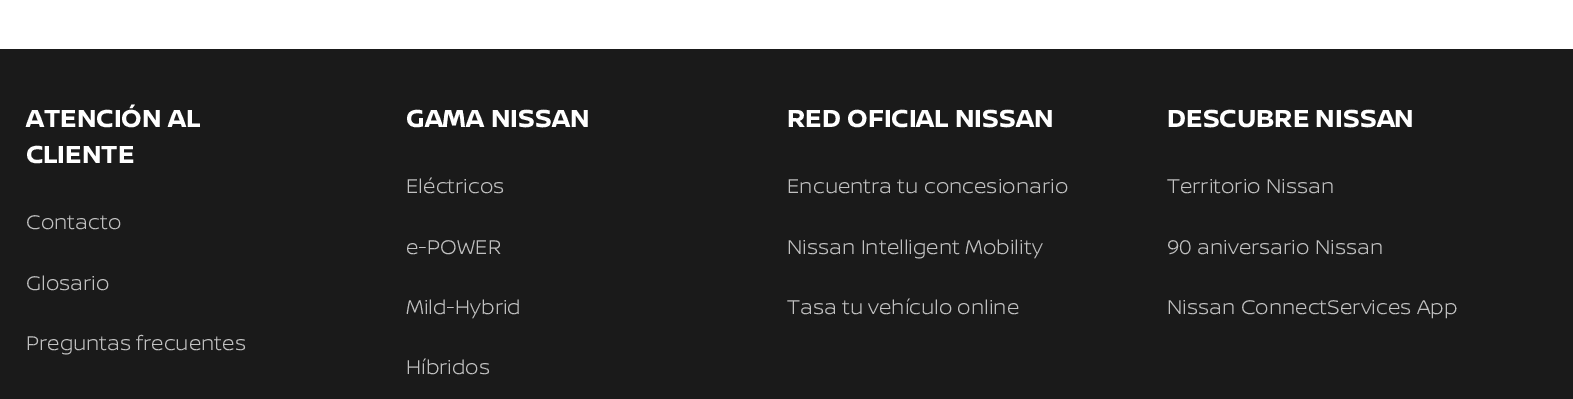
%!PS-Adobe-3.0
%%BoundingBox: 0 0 1573 399
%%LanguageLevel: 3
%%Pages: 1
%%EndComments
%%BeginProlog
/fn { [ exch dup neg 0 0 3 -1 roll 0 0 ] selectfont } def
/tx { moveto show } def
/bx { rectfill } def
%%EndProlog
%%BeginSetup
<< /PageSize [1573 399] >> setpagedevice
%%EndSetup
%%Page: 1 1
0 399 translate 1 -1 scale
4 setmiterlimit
1 setgray
0 0 1573 399 bx
0.102 setgray
0 49 1573 350 bx
/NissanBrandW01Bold-Bold 26.25 fn
1 setgray
(ATENCIÓN AL) 26 127 tx
(CLIENTE) 26 163 tx
/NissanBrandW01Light-Light 21 fn
0.757 setgray
(Contacto) 26 229 tx
(Glosario) 26 290 tx
(Preguntas frecuentes) 26 350 tx
/NissanBrandW01Bold-Bold 26.25 fn
1 setgray
(GAMA NISSAN) 406 127 tx
/NissanBrandW01Light-Light 21 fn
0.757 setgray
(Eléctricos) 406 193 tx
(e-POWER) 406 254 tx
(Mild-Hybrid) 406 314 tx
(Híbridos) 406 374 tx
/NissanBrandW01Bold-Bold 26.25 fn
1 setgray
(RED OFICIAL NISSAN) 787 127 tx
/NissanBrandW01Light-Light 21 fn
0.757 setgray
(Encuentra tu concesionario) 787 193 tx
(Nissan Intelligent Mobility) 787 254 tx
(Tasa tu vehículo online) 787 314 tx
/NissanBrandW01Bold-Bold 26.25 fn
1 setgray
(DESCUBRE NISSAN) 1167 127 tx
/NissanBrandW01Light-Light 21 fn
0.757 setgray
(Territorio Nissan) 1167 193 tx
(90 aniversario Nissan) 1167 254 tx
(Nissan ConnectServices App) 1167 314 tx
showpage
%%EOF
